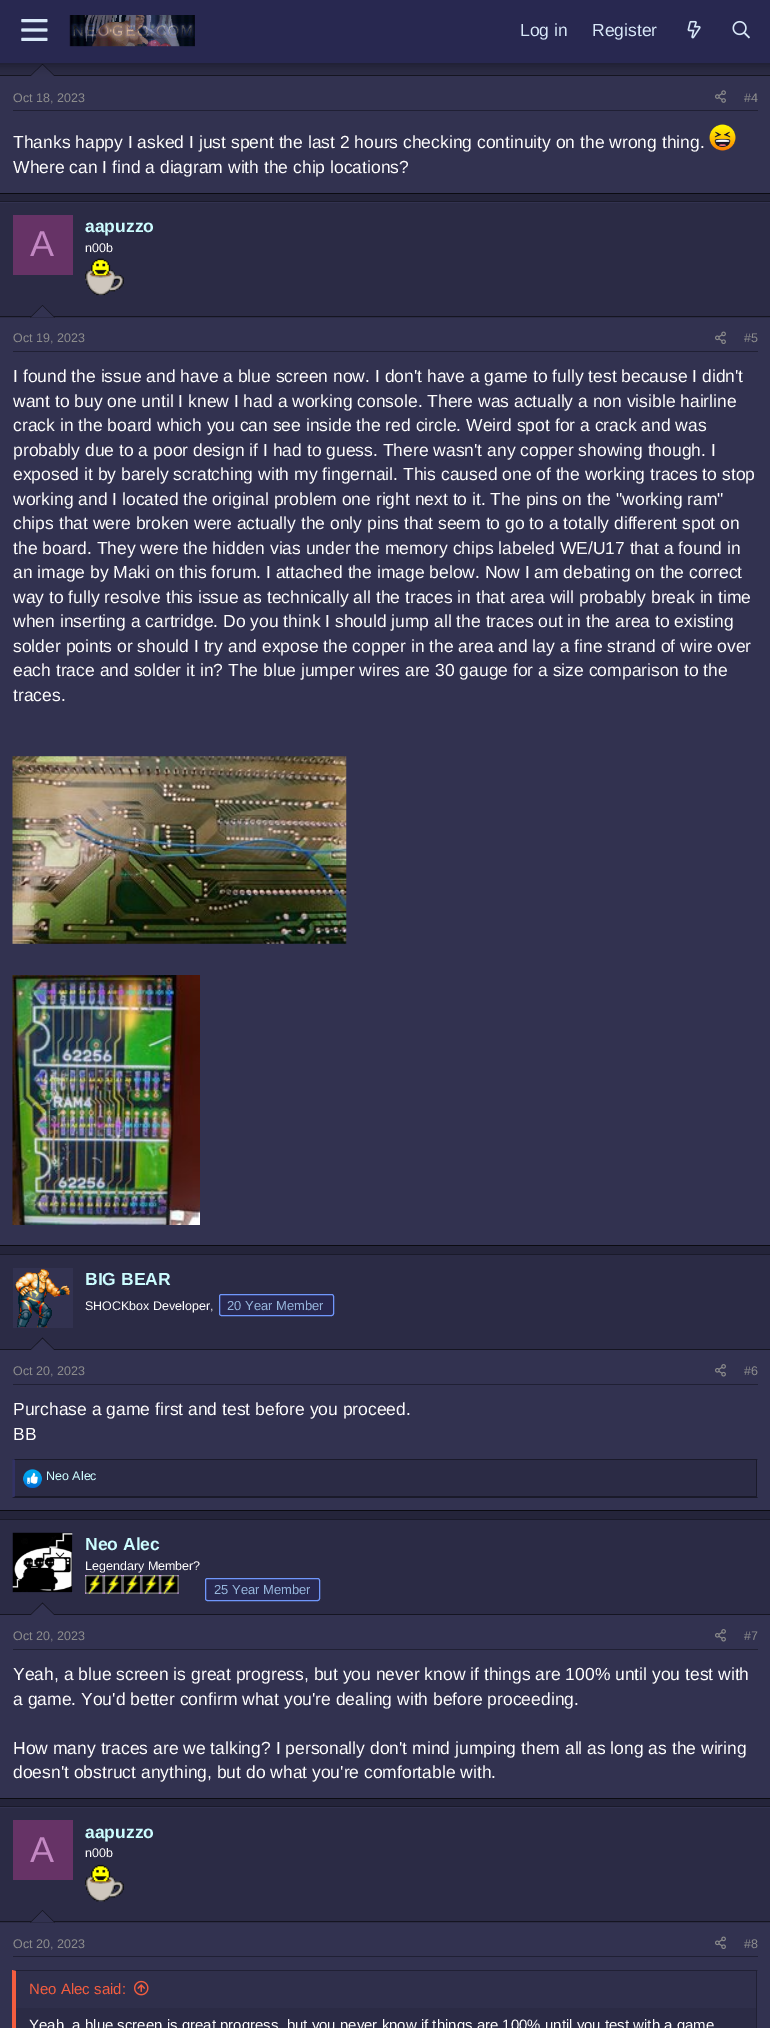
%!PS-Adobe-3.0
%%BoundingBox: 0 0 770 2028
%%LanguageLevel: 3
%%Pages: 1
%%EndComments
%%BeginProlog
/m { moveto } bind def
/l { lineto } bind def
/h { closepath } bind def
/f { fill } bind def
/S { stroke } bind def
/q { gsave } bind def
/Q { grestore } bind def
/fn { [ exch dup neg 0 0 3 -1 roll 0 0 ] selectfont } def
/tx { moveto show } def
/bx { rectfill } def
/al { dup .setfillconstantalpha .setstrokeconstantalpha } def
/rr { 5 dict begin { /r /h /w /y /x } { exch def } forall
  x r add y moveto x w add y 2 copy h add r arct x w add y h add x 1 index r arct
  x y h add x y r arct x y 2 copy exch w add exch r arct closepath end } def
/sh { 12 dict begin { /a /b /q /h /w /y /x } { exch def } forall gsave /was 0 def
  9 -2 -9 { dup b mul 4 div /e exch def 1 sub .425 mul 2.718 exch exp 1 add a .99 .min exch div /now exch def
    1 1 now sub 1 was sub div sub al /was now def
    w h .min e 2 mul add 0 gt { x e sub y e sub w e 2 mul add h e 2 mul add
      q e add b .6 mul add w h .min 2 div e add .min 0 .max rr fill } if } for grestore end } def
/im { 5 dict begin { /h /w /y /x /name } { exch def } forall
  gsave x y translate w h scale
  w h 8 [w 0 0 h 0 0] name (r) file false 3 colorimage grestore end } def
%%EndProlog
%%BeginSetup
<< /PageSize [770 2028] /PageUsesTransparency true >> setpagedevice
%%EndSetup
%%Page: 1 1
0 .pushpdf14devicefilter
0 2028 translate 1 -1 scale
4 setmiterlimit
0.141 0.141 0.227 setrgbcolor
0 0 770 2028 bx
0.196 0.196 0.314 setrgbcolor
0 76 770 117 bx
0.169 0.169 0.271 setrgbcolor
0 63 770 12 bx
0.082 0.082 0.129 setrgbcolor
0 75 770 1 bx
55 76 m 30 76 l 42.5 64 l h f
0.196 0.196 0.314 setrgbcolor
54 76 m 31 76 l 42.5 65 l h f
0 setgray
-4 -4 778 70 0 5 0.3 sh
0.157 0.157 0.314 setrgbcolor
0 0 770 63 bx
(image0.raw) 21 19 27 22 im
(image1.raw) 69 15 126 32 im
/LiberationSans-Regular 17.5 fn
0.847 0.91 0.973 setrgbcolor
(Log in) 520 36 tx
(Register) 592 36 tx
(image2.raw) 687 20 14 19 im
(image3.raw) 732 20 18 19 im
0.043 0.043 0.067 setrgbcolor
0 193 770 1 bx
0.125 0.125 0.204 setrgbcolor
13 110 745 1 bx
/LiberationSans-Regular 12.5 fn
0.549 setgray
(Oct 18, 2023) 13 102 tx
(image4.raw) 715 90 11 13 im
(#4) 744 102 tx
/LiberationSans-Regular 17.5 fn
0.996 0.992 0.992 setrgbcolor
(Thanks happy I asked I just spent the last 2 hours checking continuity on the wrong thing.) 13 148 tx
(image5.raw) 709 124 27 27 im
(Where can I find a diagram with the chip locations?) 13 173 tx
0.196 0.196 0.314 setrgbcolor
0 202 770 1043 bx
0.102 0.102 0.165 setrgbcolor
0 201 770 1 bx
0.043 0.043 0.067 setrgbcolor
0 1245 770 1 bx
0.169 0.169 0.271 setrgbcolor
0 203 770 115 bx
0.082 0.082 0.129 setrgbcolor
0 316 770 1 bx
0.4 0.2 0.4 setrgbcolor
13 215 60 60 bx
/LiberationSans-Regular 36 fn
0.765 0.533 0.765 setrgbcolor
(A) 30 256 tx
/LiberationSans-Bold 17.5 fn
0.8 0.992 1 setrgbcolor
(aapuzzo) 85 232 tx
/LiberationSans-Regular 12.5 fn
0.996 0.992 0.992 setrgbcolor
(n00b) 85 252 tx
(image6.raw) 85 258 39 38 im
0.082 0.082 0.129 setrgbcolor
55 317.5 m 30 317.5 l 42.5 305 l h f
0.196 0.196 0.314 setrgbcolor
54 317.5 m 31 317.5 l 42.5 306 l h f
0.125 0.125 0.204 setrgbcolor
13 351 745 1 bx
0.549 setgray
(Oct 19, 2023) 13 342 tx
(image7.raw) 715 331 11 13 im
(#5) 744 342 tx
/LiberationSans-Regular 17.5 fn
0.996 0.992 0.992 setrgbcolor
(I found the issue and have a blue screen now. I don't have a game to fully test because I didn't) 13 382 tx
(want to buy one until I knew I had a working console. There was actually a non visible hairline) 13 407 tx
(crack in the board which you can see inside the red circle. Weird spot for a crack and was) 13 431 tx
(probably due to a poor design if I had to guess. There wasn't any copper showing though. I) 13 456 tx
(exposed it by barely scratching with my fingernail. This caused one of the working traces to stop) 13 480 tx
(working and I located the original problem one right next to it. The pins on the "working ram") 13 505 tx
(chips that were broken were actually the only pins that seem to go to a totally different spot on) 13 529 tx
(the board. They were the hidden vias under the memory chips labeled WE/U17 that a found in) 13 554 tx
(an image by Maki on this forum. I attached the image below. Now I am debating on the correct) 13 578 tx
(way to fully resolve this issue as technically all the traces in that area will probably break in time) 13 603 tx
(when inserting a cartridge. Do you think I should jump all the traces out in the area to existing) 13 627 tx
(solder points or should I try and expose the copper in the area and lay a fine strand of wire over) 13 652 tx
(each trace and solder it in? The blue jumper wires are 30 gauge for a size comparison to the) 13 676 tx
(traces.) 13 701 tx
(image8.raw) 12 756 335 188 im
(image9.raw) 12 975 188 250 im
0.196 0.196 0.314 setrgbcolor
0 1350 770 160 bx
0.102 0.102 0.165 setrgbcolor
0 1254 770 1 bx
0.043 0.043 0.067 setrgbcolor
0 1510 770 1 bx
0.169 0.169 0.271 setrgbcolor
0 1255 770 94 bx
0.082 0.082 0.129 setrgbcolor
0 1349 770 1 bx
0.196 0.196 0.314 setrgbcolor
13 1268 60 60 bx
(image10.raw) 15 1269 55 59 im
/LiberationSans-Bold 17.5 fn
0.8 0.992 1 setrgbcolor
(BIG BEAR) 85 1285 tx
/LiberationSans-Regular 12.5 fn
0.996 0.992 0.992 setrgbcolor
(SHOCKbox Developer,) 85 1310 tx
0.157 0.157 0.314 setrgbcolor
219.5 1294.5 114 21 2 rr q f Q
0.439 0.592 0.988 setrgbcolor
S
/LiberationSans-Regular 13 fn
0.588 0.714 0.863 setrgbcolor
(20 Year Member) 227 1310 tx
0.082 0.082 0.129 setrgbcolor
55 1350 m 30 1350 l 42.5 1337.5 l h f
0.196 0.196 0.314 setrgbcolor
54 1350 m 31 1350 l 42.5 1339 l h f
0.125 0.125 0.204 setrgbcolor
13 1384 745 1 bx
/LiberationSans-Regular 12.5 fn
0.549 setgray
(Oct 20, 2023) 13 1375 tx
(image11.raw) 715 1364 11 13 im
(#6) 744 1375 tx
/LiberationSans-Regular 17.5 fn
0.996 0.992 0.992 setrgbcolor
(Purchase a game first and test before you proceed.) 13 1415 tx
(BB) 13 1440 tx
0.169 0.169 0.271 setrgbcolor
15 1460 741 36 bx
0.102 0.102 0.165 setrgbcolor
12 1459 m 758 1459 l 756 1460 l 15 1460 l h f
756 1459 1 39 bx
758 1498 m 12 1498 l 15 1496 l 756 1496 l h f
0.196 0.196 0.392 setrgbcolor
12.5 1497.5 m 12.5 1459 l 15 1460 l 15 1496 l h f
(image12.raw) 23 1469 19 19 im
/LiberationSans-Regular 12.5 fn
0.8 0.992 1 setrgbcolor
(Neo Alec) 46 1480 tx
0.196 0.196 0.314 setrgbcolor
0 1615 770 183 bx
0.102 0.102 0.165 setrgbcolor
0 1519 770 1 bx
0.043 0.043 0.067 setrgbcolor
0 1798 770 1 bx
0.169 0.169 0.271 setrgbcolor
0 1520 770 94 bx
0.082 0.082 0.129 setrgbcolor
0 1614 770 1 bx
0.196 0.196 0.314 setrgbcolor
13 1533 60 60 bx
(image13.raw) 12 1532 61 61 im
/LiberationSans-Bold 17.5 fn
0.8 0.992 1 setrgbcolor
(Neo Alec) 85 1550 tx
/LiberationSans-Regular 12.5 fn
0.996 0.992 0.992 setrgbcolor
(Legendary Member?) 85 1570 tx
(image14.raw) 85 1575 19 19 im
(image15.raw) 103 1575 20 19 im
(image16.raw) 122 1575 20 19 im
(image17.raw) 141 1575 19 19 im
(image14.raw) 160 1575 19 19 im
0.157 0.157 0.314 setrgbcolor
205.5 1578.5 114 22 2 rr q f Q
0.439 0.592 0.988 setrgbcolor
S
/LiberationSans-Regular 13 fn
0.588 0.714 0.863 setrgbcolor
(25 Year Member) 214 1594 tx
0.082 0.082 0.129 setrgbcolor
55 1615 m 30 1615 l 42.5 1602.5 l h f
0.196 0.196 0.314 setrgbcolor
54 1615 m 31 1615 l 42.5 1604 l h f
0.125 0.125 0.204 setrgbcolor
13 1649 745 1 bx
/LiberationSans-Regular 12.5 fn
0.549 setgray
(Oct 20, 2023) 13 1640 tx
(image11.raw) 715 1629 11 13 im
(#7) 744 1640 tx
/LiberationSans-Regular 17.5 fn
0.996 0.992 0.992 setrgbcolor
(Yeah, a blue screen is great progress, but you never know if things are 100% until you test with) 13 1680 tx
(a game. You'd better confirm what you're dealing with before proceeding.) 13 1705 tx
(How many traces are we talking? I personally don't mind jumping them all as long as the wiring) 13 1754 tx
(doesn't obstruct anything, but do what you're comfortable with.) 13 1778 tx
0.196 0.196 0.314 setrgbcolor
0 1807 770 221 bx
0.102 0.102 0.165 setrgbcolor
0 1806 770 1 bx
0.169 0.169 0.271 setrgbcolor
0 1808 770 115 bx
0.082 0.082 0.129 setrgbcolor
0 1921 770 1 bx
0.4 0.2 0.4 setrgbcolor
13 1820 60 60 bx
/LiberationSans-Regular 36 fn
0.765 0.533 0.765 setrgbcolor
(A) 30 1862 tx
/LiberationSans-Bold 17.5 fn
0.8 0.992 1 setrgbcolor
(aapuzzo) 85 1838 tx
/LiberationSans-Regular 12.5 fn
0.996 0.992 0.992 setrgbcolor
(n00b) 85 1857 tx
(image18.raw) 85 1864 39 38 im
0.082 0.082 0.129 setrgbcolor
55 1922.5 m 30 1922.5 l 42.5 1910 l h f
0.196 0.196 0.314 setrgbcolor
54 1922.5 m 31 1922.5 l 42.5 1911 l h f
0.125 0.125 0.204 setrgbcolor
13 1956 745 1 bx
0.549 setgray
(Oct 20, 2023) 13 1948 tx
(image7.raw) 715 1936 11 13 im
(#8) 744 1948 tx
0.169 0.169 0.271 setrgbcolor
16 2008 740 20 bx
0.125 0.125 0.204 setrgbcolor
12 1970 m 758 1970 l 756 1971 l 16 1971 l h f
756 1970 1 58 bx
0.957 0.365 0.247 setrgbcolor
12 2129 m 12 1970 l 16 1971 l 16 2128 l h f
0.184 0.184 0.294 setrgbcolor
16 1971 740 37 bx
/LiberationSans-Regular 15 fn
0.957 0.365 0.247 setrgbcolor
(Neo Alec said:) 29 1994 tx
(image19.raw) 134 1980 15 16 im
0.996 0.992 0.992 setrgbcolor
(Yeah, a blue screen is great progress, but you never know if things are 100% until you test with a game) 29 2030 tx
.poppdf14devicefilter showpage
%%EOF
